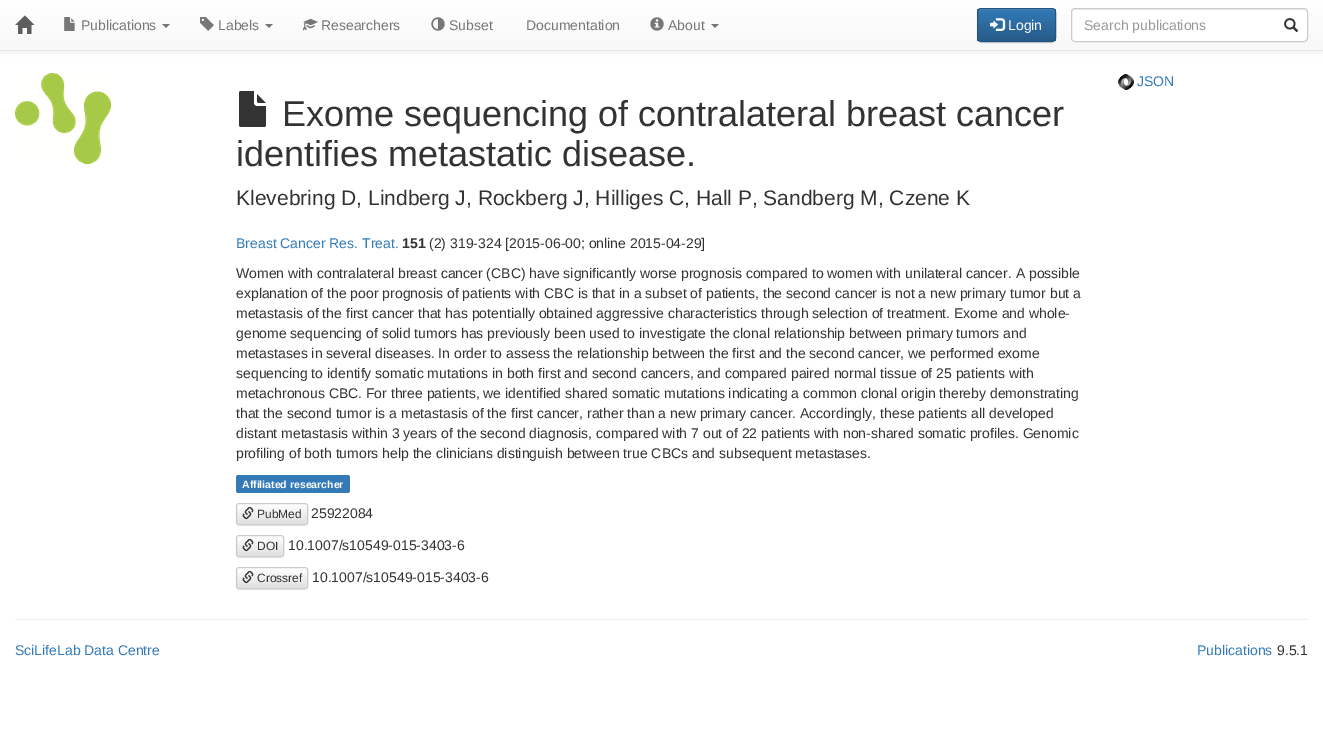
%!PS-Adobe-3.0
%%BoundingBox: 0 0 1323 730
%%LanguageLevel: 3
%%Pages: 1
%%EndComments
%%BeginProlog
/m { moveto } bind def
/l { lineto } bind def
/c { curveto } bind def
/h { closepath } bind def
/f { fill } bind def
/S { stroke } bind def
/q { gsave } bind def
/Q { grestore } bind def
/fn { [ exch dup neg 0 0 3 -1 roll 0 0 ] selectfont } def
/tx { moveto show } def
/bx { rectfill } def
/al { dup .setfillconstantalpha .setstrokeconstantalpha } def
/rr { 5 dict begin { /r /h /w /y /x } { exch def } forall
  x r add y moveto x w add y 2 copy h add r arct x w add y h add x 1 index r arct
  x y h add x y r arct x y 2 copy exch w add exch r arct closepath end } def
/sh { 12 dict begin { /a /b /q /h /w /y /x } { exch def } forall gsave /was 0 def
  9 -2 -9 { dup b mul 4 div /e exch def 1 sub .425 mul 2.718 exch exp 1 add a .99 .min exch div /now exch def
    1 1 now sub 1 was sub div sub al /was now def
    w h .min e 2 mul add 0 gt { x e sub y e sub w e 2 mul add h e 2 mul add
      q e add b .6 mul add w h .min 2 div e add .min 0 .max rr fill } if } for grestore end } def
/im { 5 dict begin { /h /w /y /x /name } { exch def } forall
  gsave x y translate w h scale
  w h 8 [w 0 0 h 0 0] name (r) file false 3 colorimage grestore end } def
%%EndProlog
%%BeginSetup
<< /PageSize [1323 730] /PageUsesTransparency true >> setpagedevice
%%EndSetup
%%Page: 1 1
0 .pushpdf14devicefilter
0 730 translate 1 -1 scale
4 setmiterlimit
1 setgray
0 0 1323 730 bx
0 setgray
0 1 1323 51 0 2.5 0.07 sh
q 0 0 m 1323 0 l 1323 50 l 0 50 l h clip newpath
<< /ShadingType 2 /ColorSpace /DeviceRGB /Coords [662 0 662 50] /Extend [true true] /Function << /FunctionType 2 /Domain [0 1] /C0 [1 1 1] /C1 [0.973 0.973 0.973] /N 1 >> >> shfill Q
0.906 setgray
0 50 1323 1 bx
(image0.raw) 15 15 20 19 im
(image1.raw) 64 17 11 14 im
/LiberationSans-Regular 14 fn
0.467 setgray
(Publications) 81 30 tx
162 24 m 170 24 l 166 28 l h f
(image2.raw) 200 17 14 14 im
(Labels) 218 30 tx
265 24 m 273 24 l 269 28 l h f
(image3.raw) 303 18 15 13 im
(Researchers) 321 30 tx
(image4.raw) 431 17 14 14 im
(Subset) 449 30 tx
(Documentation) 526 30 tx
(image5.raw) 650 17 14 14 im
(About) 668 30 tx
711 24 m 719 24 l 715 28 l h f
0 setgray
977 9 79 34 4 0.5 0.07 sh
q
977 8 79 34 4 rr clip newpath
q 977 9 m 1056 9 l 1056 41 l 977 41 l h clip newpath
<< /ShadingType 2 /ColorSpace /DeviceRGB /Coords [1017 9 1017 41] /Extend [true true] /Function << /FunctionType 2 /Domain [0 1] /C0 [0.2 0.478 0.718] /C1 [0.149 0.353 0.533] /N 1 >> >> shfill Q
Q
0.322 0.557 0.757 setrgbcolor
981 10 m 1052 10 l 1054 10 1055 11 1055 13 c 1055 6 1044 9 1040 9 c 993 9 l 989 9 978 6 978 13 c 978 11 979 10 981 10 c h f
0.141 0.333 0.502 setrgbcolor
977.5 8.5 78 33 3.5 rr S
(image6.raw) 990 18 16 13 im
1 setgray
(Login) 1008 30 tx
1071 8 237 34 4 rr f
0.925 setgray
1075 10 m 1304 10 l 1306 10 1307 11 1307 13 c 1307 11 1306 9 1304 9 c 1075 9 l 1073 9 1072 11 1072 13 c 1072 11 1073 10 1075 10 c h f
0.8 setgray
1071.5 8.5 236 33 3.5 rr S
0.6 setgray
(Search publications) 1084 30 tx
(image7.raw) 1284 18 15 14 im
(image8.raw) 15 73 96 91 im
(image9.raw) 1118 74 16 16 im
0.2 0.478 0.718 setrgbcolor
(JSON) 1137 86 tx
(image10.raw) 239 91 27 36 im
/LiberationSans-Regular 36 fn
0.2 setgray
(Exome sequencing of contralateral breast cancer) 282 126 tx
(identifies metastatic disease.) 236 166 tx
/LiberationSans-Regular 21 fn
(Klevebring D, Lindberg J, Rockberg J, Hilliges C, Hall P, Sandberg M, Czene K) 236 205 tx
/LiberationSans-Regular 14 fn
0.2 0.478 0.718 setrgbcolor
(Breast Cancer Res. Treat.) 236 248 tx
/LiberationSans-Bold 14 fn
0.2 setgray
(151) 402 248 tx
/LiberationSans-Regular 14 fn
(\(2\) 319-324 [2015-06-00; online 2015-04-29]) 429 248 tx
(Women with contralateral breast cancer \(CBC\) have significantly worse prognosis compared to women with unilateral cancer. A possible) 236 278 tx
(explanation of the poor prognosis of patients with CBC is that in a subset of patients, the second cancer is not a new primary tumor but a) 236 298 tx
(metastasis of the first cancer that has potentially obtained aggressive characteristics through selection of treatment. Exome and whole-) 236 318 tx
(genome sequencing of solid tumors has previously been used to investigate the clonal relationship between primary tumors and) 236 338 tx
(metastases in several diseases. In order to assess the relationship between the first and the second cancer, we performed exome) 236 358 tx
(sequencing to identify somatic mutations in both first and second cancers, and compared paired normal tissue of 25 patients with) 236 378 tx
(metachronous CBC. For three patients, we identified shared somatic mutations indicating a common clonal origin thereby demonstrating) 236 398 tx
(that the second tumor is a metastasis of the first cancer, rather than a new primary cancer. Accordingly, these patients all developed) 236 418 tx
(distant metastasis within 3 years of the second diagnosis, compared with 7 out of 22 patients with non-shared somatic profiles. Genomic) 236 438 tx
(profiling of both tumors help the clinicians distinguish between true CBCs and subsequent metastases.) 236 458 tx
0.2 0.478 0.718 setrgbcolor
236 475 114 18 2.5 rr f
/LiberationSans-Bold 10.5 fn
1 setgray
(Affiliated researcher) 242 488 tx
0 setgray
236 504 72 22 3 0.5 0.07 sh
q
236 503 72 22 3 rr clip newpath
q 236 504 m 308 504 l 308 524 l 236 524 l h clip newpath
<< /ShadingType 2 /ColorSpace /DeviceRGB /Coords [272 504 272 524] /Extend [true true] /Function << /FunctionType 2 /Domain [0 1] /C0 [1 1 1] /C1 [0.878 0.878 0.878] /N 1 >> >> shfill Q
Q
0.8 setgray
236.5 503.5 71 21 2.5 rr S
(image11.raw) 242 506 12 14 im
/LiberationSans-Regular 12 fn
0.2 setgray
(PubMed) 257 518 tx
/LiberationSans-Regular 14 fn
(25922084) 311 518 tx
0 setgray
236 536 48 22 3 0.5 0.07 sh
q
236 535 48 22 3 rr clip newpath
q 236 536 m 284 536 l 284 556 l 236 556 l h clip newpath
<< /ShadingType 2 /ColorSpace /DeviceRGB /Coords [260 536 260 556] /Extend [true true] /Function << /FunctionType 2 /Domain [0 1] /C0 [1 1 1] /C1 [0.878 0.878 0.878] /N 1 >> >> shfill Q
Q
0.8 setgray
236.5 535.5 47 21 2.5 rr S
(image11.raw) 242 538 12 14 im
/LiberationSans-Regular 12 fn
0.2 setgray
(DOI) 257 550 tx
/LiberationSans-Regular 14 fn
(10.1007/s10549-015-3403-6) 288 550 tx
0 setgray
236 568 72 22 3 0.5 0.07 sh
q
236 567 72 22 3 rr clip newpath
q 236 568 m 308 568 l 308 588 l 236 588 l h clip newpath
<< /ShadingType 2 /ColorSpace /DeviceRGB /Coords [272 568 272 588] /Extend [true true] /Function << /FunctionType 2 /Domain [0 1] /C0 [1 1 1] /C1 [0.878 0.878 0.878] /N 1 >> >> shfill Q
Q
0.8 setgray
236.5 567.5 71 21 2.5 rr S
(image11.raw) 242 570 12 14 im
/LiberationSans-Regular 12 fn
0.2 setgray
(Crossref) 257 582 tx
/LiberationSans-Regular 14 fn
(10.1007/s10549-015-3403-6) 312 582 tx
0.933 setgray
15 619 1293 1 bx
0.2 0.478 0.718 setrgbcolor
(SciLifeLab Data Centre) 15 655 tx
(Publications) 1197 655 tx
0.2 setgray
(9.5.1) 1277 655 tx
.poppdf14devicefilter showpage
%%EOF
